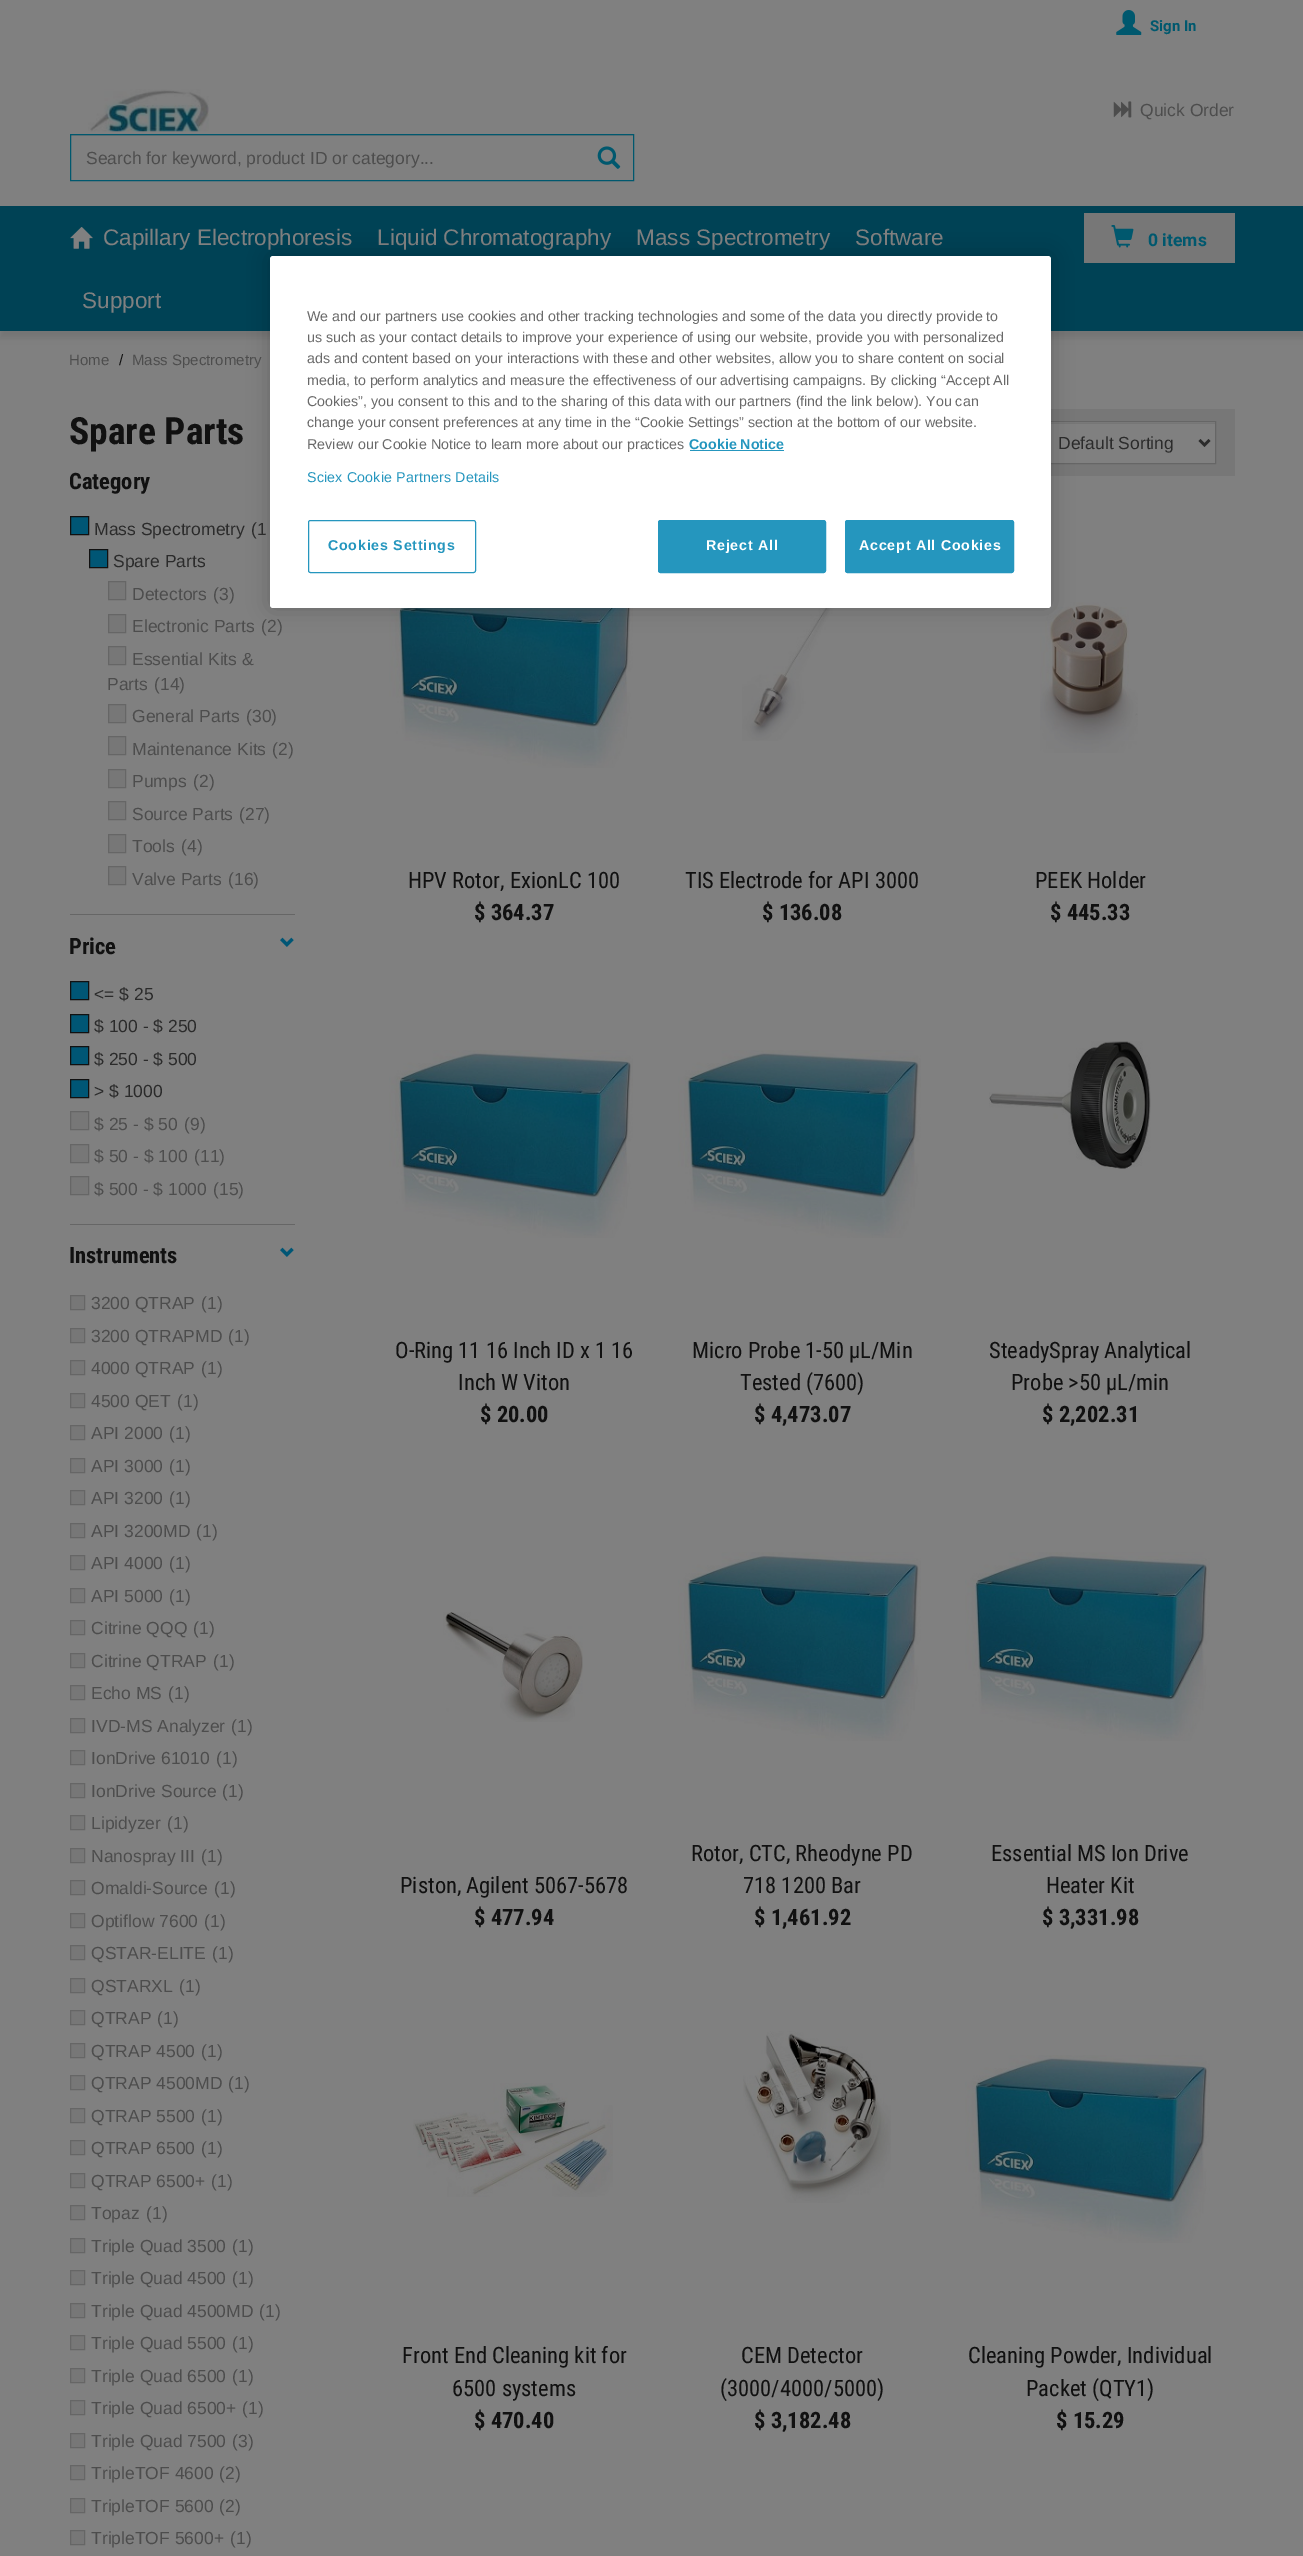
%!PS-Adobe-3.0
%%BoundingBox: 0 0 1303 2556
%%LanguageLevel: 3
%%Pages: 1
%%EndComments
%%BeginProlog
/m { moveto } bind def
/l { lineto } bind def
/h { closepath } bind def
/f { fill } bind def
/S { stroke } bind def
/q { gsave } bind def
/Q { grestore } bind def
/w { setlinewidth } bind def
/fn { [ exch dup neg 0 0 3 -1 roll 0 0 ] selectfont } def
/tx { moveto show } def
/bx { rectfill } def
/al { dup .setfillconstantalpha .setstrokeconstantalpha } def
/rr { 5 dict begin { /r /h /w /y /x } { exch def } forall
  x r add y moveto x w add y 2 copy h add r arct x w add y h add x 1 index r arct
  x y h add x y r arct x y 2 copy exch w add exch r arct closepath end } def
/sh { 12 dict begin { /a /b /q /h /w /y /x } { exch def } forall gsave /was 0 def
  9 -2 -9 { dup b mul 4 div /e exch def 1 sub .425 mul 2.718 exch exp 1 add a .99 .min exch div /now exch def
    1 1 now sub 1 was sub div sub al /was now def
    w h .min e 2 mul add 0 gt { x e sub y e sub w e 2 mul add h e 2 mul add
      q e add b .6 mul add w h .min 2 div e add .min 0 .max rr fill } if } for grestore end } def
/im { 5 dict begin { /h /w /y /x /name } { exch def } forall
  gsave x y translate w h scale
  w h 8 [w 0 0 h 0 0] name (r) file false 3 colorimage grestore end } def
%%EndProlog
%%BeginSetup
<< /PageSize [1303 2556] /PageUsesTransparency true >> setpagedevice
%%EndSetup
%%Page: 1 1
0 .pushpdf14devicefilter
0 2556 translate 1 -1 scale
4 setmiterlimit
0.502 setgray
0 0 1303 2556 bx
(image0.raw) 1116 10 26 25 im
/Roboto-Bold 15 fn
0 0.345 0.431 setrgbcolor
(Sign In) 1150 31 tx
(image1.raw) 88 89 121 43 im
(image2.raw) 1113 101 19 17 im
/LiberationSans-Regular 17.5 fn
0.302 setgray
(Quick Order) 1140 116 tx
0.463 setgray
71 135 562 1 bx
0 0.345 0.431 setrgbcolor
70.5 134.5 563 46 rectstroke
0.302 setgray
(Search for keyword, product ID or category...) 86 164 tx
(image3.raw) 597 146 24 23 im
0 setgray
0 213 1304 125 0 3 0.1 sh
0 0.259 0.333 setrgbcolor
0 206 1303 125 bx
(image4.raw) 70 227 23 22 im
/LiberationSans-Regular 22.5 fn
0.502 setgray
(Capillary Electrophoresis) 103 245 tx
(Liquid Chromatography) 377 245 tx
(Mass Spectrometry) 636 245 tx
(Software) 855 245 tx
(Support) 82 308 tx
0.467 setgray
1084 213 151 50 bx
(image5.raw) 1111 225 23 23 im
/Roboto-Bold 17.5 fn
0 0.345 0.431 setrgbcolor
(0 items) 1148 246 tx
0.467 setgray
1051 409 184 67 bx
0.502 setgray
1051 422 164 41 bx
0.463 setgray
1051 423 164 1 bx
0.4 setgray
1038.5 421.5 177 42 rectstroke
(image7.raw) 389 608 244 160 im
(image8.raw) 742 608 98 133 im
(image9.raw) 1040 602 98 151 im
0 setgray
270 256 781 352 3 11 0.2 sh
1 setgray
270 256 781 352 3 rr f
/LiberationSans-Regular 14.25 fn
0.412 setgray
(We and our partners use cookies and other tracking technologies and some of the data you directly provide to) 307 321 tx
(us such as your contact details to improve your experience of using our website, provide you with personalized) 307 342 tx
(ads and content based on your interactions with these and other websites, allow you to share content on social) 307 363 tx
(media, to perform analytics and measure the effectiveness of our advertising campaigns. By clicking “Accept All) 307 385 tx
(Cookies”, you consent to this and to the sharing of this data with our partners \(find the link below\). You can) 307 406 tx
(change your consent preferences at any time in the “Cookie Settings” section at the bottom of our website.) 307 427 tx
(Review our Cookie Notice to learn more about our practices) 307 449 tx
/LiberationSans-Bold 14.25 fn
0.145 0.588 0.745 setrgbcolor
(Cookie Notice) 689 449 tx
690 450 94 1 bx
/LiberationSans-Regular 14.25 fn
307 482 m 0.15 0 (Sciex Cookie Partners Details) ashow
308.5 520.5 167 52 2 rr S
/LiberationSans-Bold 14.25 fn
328 550 m 0.75 0 (Cookies Settings) ashow
658.5 520.5 167 52 2 rr q f Q
S
1 setgray
706 550 m 0.75 0 (Reject All) ashow
0.145 0.588 0.745 setrgbcolor
845.5 520.5 168 52 2 rr q f Q
S
1 setgray
859 550 m 0.75 0 (Accept All Cookies) ashow
/LiberationSans-Regular 15 fn
0.302 setgray
(Home) 69 365 tx
0.067 setgray
(/) 119 365 tx
0.302 setgray
(Mass Spectrometry) 132 365 tx
/RobotoCondensed-Bold 37.5 fn
0.067 setgray
(Spare Parts) 69 444 tx
0.4 setgray
70 914 225 1 bx
/RobotoCondensed-Bold 22.5 fn
0.067 setgray
(Category) 69 489 tx
0 0.337 0.459 setrgbcolor
70.5 516.5 m 88.5 516.5 l 88.5 534.5 l 70.5 534.5 l h q f Q
0.067 setgray
S
/LiberationSans-Regular 17.5 fn
0.169 setgray
(Mass Spectrometry) 94 535 tx
(\(1) 251 535 tx
0 0.337 0.459 setrgbcolor
89.5 549.5 m 107.5 549.5 l 107.5 567.5 l 89.5 567.5 l h q f Q
0.067 setgray
S
0.169 setgray
(Spare Parts) 113 567 tx
0.467 setgray
108.5 581.5 m 125.5 581.5 l 125.5 599.5 l 108.5 599.5 l h q f Q
0.4 setgray
S
0.302 setgray
(Detectors) 132 600 tx
(\(3\)) 213 600 tx
0.467 setgray
108.5 614.5 m 125.5 614.5 l 125.5 632.5 l 108.5 632.5 l h q f Q
0.4 setgray
S
0.302 setgray
(Electronic Parts) 132 632 tx
(\(2\)) 261 632 tx
0.467 setgray
108.5 646.5 m 125.5 646.5 l 125.5 664.5 l 108.5 664.5 l h q f Q
0.4 setgray
S
0.302 setgray
(Essential Kits &) 132 665 tx
(Parts) 107 690 tx
(\(14\)) 154 690 tx
0.467 setgray
108.5 704.5 m 125.5 704.5 l 125.5 722.5 l 108.5 722.5 l h q f Q
0.4 setgray
S
0.302 setgray
(General Parts) 132 722 tx
(\(30\)) 246 722 tx
0.467 setgray
108.5 736.5 m 125.5 736.5 l 125.5 754.5 l 108.5 754.5 l h q f Q
0.4 setgray
S
0.302 setgray
(Maintenance Kits) 132 755 tx
(\(2\)) 272 755 tx
0.467 setgray
108.5 769.5 m 125.5 769.5 l 125.5 787.5 l 108.5 787.5 l h q f Q
0.4 setgray
S
0.302 setgray
(Pumps) 132 787 tx
(\(2\)) 193 787 tx
0.467 setgray
108.5 801.5 m 125.5 801.5 l 125.5 819.5 l 108.5 819.5 l h q f Q
0.4 setgray
S
0.302 setgray
(Source Parts) 132 820 tx
(\(27\)) 239 820 tx
0.467 setgray
108.5 834.5 m 125.5 834.5 l 125.5 852.5 l 108.5 852.5 l h q f Q
0.4 setgray
S
0.302 setgray
(Tools) 132 852 tx
(\(4\)) 181 852 tx
0.467 setgray
108.5 866.5 m 125.5 866.5 l 125.5 884.5 l 108.5 884.5 l h q f Q
0.4 setgray
S
0.302 setgray
(Valve Parts) 132 885 tx
(\(16\)) 228 885 tx
0.4 setgray
70 1224 225 1 bx
/RobotoCondensed-Bold 22.5 fn
0.067 setgray
(Price) 69 954 tx
(image6.raw) 280 937 14 10 im
0 0.337 0.459 setrgbcolor
70.5 981.5 m 88.5 981.5 l 88.5 999.5 l 70.5 999.5 l h q f Q
0.067 setgray
S
/LiberationSans-Regular 17.5 fn
0.169 setgray
(<= $ 25) 94 1000 tx
0 0.337 0.459 setrgbcolor
70.5 1014.5 m 88.5 1014.5 l 88.5 1032.5 l 70.5 1032.5 l h q f Q
0.067 setgray
S
0.169 setgray
($ 100 - $ 250) 94 1032 tx
0 0.337 0.459 setrgbcolor
70.5 1046.5 m 88.5 1046.5 l 88.5 1064.5 l 70.5 1064.5 l h q f Q
0.067 setgray
S
0.169 setgray
($ 250 - $ 500) 94 1065 tx
0 0.337 0.459 setrgbcolor
70.5 1079.5 m 88.5 1079.5 l 88.5 1097.5 l 70.5 1097.5 l h q f Q
0.067 setgray
S
0.169 setgray
(> $ 1000) 94 1097 tx
0.467 setgray
70.5 1111.5 m 88.5 1111.5 l 88.5 1129.5 l 70.5 1129.5 l h q f Q
0.4 setgray
S
0.302 setgray
($ 25 - $ 50) 94 1130 tx
(\(9\)) 184 1130 tx
0.467 setgray
70.5 1144.5 m 88.5 1144.5 l 88.5 1162.5 l 70.5 1162.5 l h q f Q
0.4 setgray
S
0.302 setgray
($ 50 - $ 100) 94 1162 tx
(\(11\)) 194 1162 tx
0.467 setgray
70.5 1176.5 m 88.5 1176.5 l 88.5 1194.5 l 70.5 1194.5 l h q f Q
0.4 setgray
S
0.302 setgray
($ 500 - $ 1000) 94 1195 tx
(\(15\)) 213 1195 tx
/RobotoCondensed-Bold 22.5 fn
0.067 setgray
(Instruments) 69 1263 tx
(image6.raw) 280 1247 14 10 im
0.467 setgray
70.5 1295.5 m 84.5 1295.5 l 84.5 1309.5 l 70.5 1309.5 l h q f Q
0.4 setgray
S
/LiberationSans-Regular 17.5 fn
0.302 setgray
(3200 QTRAP) 91 1309 tx
(\(1\)) 201 1309 tx
0.467 setgray
70.5 1328.5 m 84.5 1328.5 l 84.5 1342.5 l 70.5 1342.5 l h q f Q
0.4 setgray
S
0.302 setgray
(3200 QTRAPMD) 91 1342 tx
(\(1\)) 228 1342 tx
0.467 setgray
70.5 1360.5 m 84.5 1360.5 l 84.5 1374.5 l 70.5 1374.5 l h q f Q
0.4 setgray
S
0.302 setgray
(4000 QTRAP) 91 1374 tx
(\(1\)) 201 1374 tx
0.467 setgray
70.5 1393.5 m 84.5 1393.5 l 84.5 1407.5 l 70.5 1407.5 l h q f Q
0.4 setgray
S
0.302 setgray
(4500 QET) 91 1407 tx
(\(1\)) 177 1407 tx
0.467 setgray
70.5 1425.5 m 84.5 1425.5 l 84.5 1439.5 l 70.5 1439.5 l h q f Q
0.4 setgray
S
0.302 setgray
(API 2000) 91 1439 tx
(\(1\)) 169 1439 tx
0.467 setgray
70.5 1458.5 m 84.5 1458.5 l 84.5 1472.5 l 70.5 1472.5 l h q f Q
0.4 setgray
S
0.302 setgray
(API 3000) 91 1472 tx
(\(1\)) 169 1472 tx
0.467 setgray
70.5 1490.5 m 84.5 1490.5 l 84.5 1504.5 l 70.5 1504.5 l h q f Q
0.4 setgray
S
0.302 setgray
(API 3200) 91 1504 tx
(\(1\)) 169 1504 tx
0.467 setgray
70.5 1523.5 m 84.5 1523.5 l 84.5 1537.5 l 70.5 1537.5 l h q f Q
0.4 setgray
S
0.302 setgray
(API 3200MD) 91 1537 tx
(\(1\)) 196 1537 tx
0.467 setgray
70.5 1555.5 m 84.5 1555.5 l 84.5 1569.5 l 70.5 1569.5 l h q f Q
0.4 setgray
S
0.302 setgray
(API 4000) 91 1569 tx
(\(1\)) 169 1569 tx
0.467 setgray
70.5 1588.5 m 84.5 1588.5 l 84.5 1602.5 l 70.5 1602.5 l h q f Q
0.4 setgray
S
0.302 setgray
(API 5000) 91 1602 tx
(\(1\)) 169 1602 tx
0.467 setgray
70.5 1620.5 m 84.5 1620.5 l 84.5 1634.5 l 70.5 1634.5 l h q f Q
0.4 setgray
S
0.302 setgray
(Citrine QQQ) 91 1634 tx
(\(1\)) 193 1634 tx
0.467 setgray
70.5 1653.5 m 84.5 1653.5 l 84.5 1667.5 l 70.5 1667.5 l h q f Q
0.4 setgray
S
0.302 setgray
(Citrine QTRAP) 91 1667 tx
(\(1\)) 213 1667 tx
0.467 setgray
70.5 1685.5 m 84.5 1685.5 l 84.5 1699.5 l 70.5 1699.5 l h q f Q
0.4 setgray
S
0.302 setgray
(Echo MS) 91 1699 tx
(\(1\)) 168 1699 tx
0.467 setgray
70.5 1718.5 m 84.5 1718.5 l 84.5 1732.5 l 70.5 1732.5 l h q f Q
0.4 setgray
S
0.302 setgray
(IVD-MS Analyzer) 91 1732 tx
(\(1\)) 231 1732 tx
0.467 setgray
70.5 1750.5 m 84.5 1750.5 l 84.5 1764.5 l 70.5 1764.5 l h q f Q
0.4 setgray
S
0.302 setgray
(IonDrive 61010) 91 1764 tx
(\(1\)) 216 1764 tx
0.467 setgray
70.5 1783.5 m 84.5 1783.5 l 84.5 1797.5 l 70.5 1797.5 l h q f Q
0.4 setgray
S
0.302 setgray
(IonDrive Source) 91 1797 tx
(\(1\)) 222 1797 tx
0.467 setgray
70.5 1815.5 m 84.5 1815.5 l 84.5 1829.5 l 70.5 1829.5 l h q f Q
0.4 setgray
S
0.302 setgray
(Lipidyzer) 91 1829 tx
(\(1\)) 167 1829 tx
0.467 setgray
70.5 1848.5 m 84.5 1848.5 l 84.5 1862.5 l 70.5 1862.5 l h q f Q
0.4 setgray
S
0.302 setgray
(Nanospray III) 91 1862 tx
(\(1\)) 201 1862 tx
0.467 setgray
70.5 1880.5 m 84.5 1880.5 l 84.5 1894.5 l 70.5 1894.5 l h q f Q
0.4 setgray
S
0.302 setgray
(Omaldi-Source) 91 1894 tx
(\(1\)) 214 1894 tx
0.467 setgray
70.5 1913.5 m 84.5 1913.5 l 84.5 1927.5 l 70.5 1927.5 l h q f Q
0.4 setgray
S
0.302 setgray
(Optiflow 7600) 91 1927 tx
(\(1\)) 204 1927 tx
0.467 setgray
70.5 1945.5 m 84.5 1945.5 l 84.5 1959.5 l 70.5 1959.5 l h q f Q
0.4 setgray
S
0.302 setgray
(QSTAR-ELITE) 91 1959 tx
(\(1\)) 212 1959 tx
0.467 setgray
70.5 1978.5 m 84.5 1978.5 l 84.5 1992.5 l 70.5 1992.5 l h q f Q
0.4 setgray
S
0.302 setgray
(QSTARXL) 91 1992 tx
(\(1\)) 179 1992 tx
0.467 setgray
70.5 2010.5 m 84.5 2010.5 l 84.5 2024.5 l 70.5 2024.5 l h q f Q
0.4 setgray
S
0.302 setgray
(QTRAP) 91 2024 tx
(\(1\)) 157 2024 tx
0.467 setgray
70.5 2043.5 m 84.5 2043.5 l 84.5 2057.5 l 70.5 2057.5 l h q f Q
0.4 setgray
S
0.302 setgray
(QTRAP 4500) 91 2057 tx
(\(1\)) 201 2057 tx
0.467 setgray
70.5 2075.5 m 84.5 2075.5 l 84.5 2089.5 l 70.5 2089.5 l h q f Q
0.4 setgray
S
0.302 setgray
(QTRAP 4500MD) 91 2089 tx
(\(1\)) 228 2089 tx
0.467 setgray
70.5 2108.5 m 84.5 2108.5 l 84.5 2122.5 l 70.5 2122.5 l h q f Q
0.4 setgray
S
0.302 setgray
(QTRAP 5500) 91 2122 tx
(\(1\)) 201 2122 tx
0.467 setgray
70.5 2140.5 m 84.5 2140.5 l 84.5 2154.5 l 70.5 2154.5 l h q f Q
0.4 setgray
S
0.302 setgray
(QTRAP 6500) 91 2154 tx
(\(1\)) 201 2154 tx
0.467 setgray
70.5 2173.5 m 84.5 2173.5 l 84.5 2187.5 l 70.5 2187.5 l h q f Q
0.4 setgray
S
0.302 setgray
(QTRAP 6500+) 91 2187 tx
(\(1\)) 211 2187 tx
0.467 setgray
70.5 2205.5 m 84.5 2205.5 l 84.5 2219.5 l 70.5 2219.5 l h q f Q
0.4 setgray
S
0.302 setgray
(Topaz) 91 2219 tx
(\(1\)) 146 2219 tx
0.467 setgray
70.5 2238.5 m 84.5 2238.5 l 84.5 2252.5 l 70.5 2252.5 l h q f Q
0.4 setgray
S
0.302 setgray
(Triple Quad 3500) 91 2252 tx
(\(1\)) 232 2252 tx
0.467 setgray
70.5 2270.5 m 84.5 2270.5 l 84.5 2284.5 l 70.5 2284.5 l h q f Q
0.4 setgray
S
0.302 setgray
(Triple Quad 4500) 91 2284 tx
(\(1\)) 232 2284 tx
0.467 setgray
70.5 2303.5 m 84.5 2303.5 l 84.5 2317.5 l 70.5 2317.5 l h q f Q
0.4 setgray
S
0.302 setgray
(Triple Quad 4500MD) 91 2317 tx
(\(1\)) 259 2317 tx
0.467 setgray
70.5 2335.5 m 84.5 2335.5 l 84.5 2349.5 l 70.5 2349.5 l h q f Q
0.4 setgray
S
0.302 setgray
(Triple Quad 5500) 91 2349 tx
(\(1\)) 232 2349 tx
0.467 setgray
70.5 2368.5 m 84.5 2368.5 l 84.5 2382.5 l 70.5 2382.5 l h q f Q
0.4 setgray
S
0.302 setgray
(Triple Quad 6500) 91 2382 tx
(\(1\)) 232 2382 tx
0.467 setgray
70.5 2400.5 m 84.5 2400.5 l 84.5 2414.5 l 70.5 2414.5 l h q f Q
0.4 setgray
S
0.302 setgray
(Triple Quad 6500+) 91 2414 tx
(\(1\)) 242 2414 tx
0.467 setgray
70.5 2433.5 m 84.5 2433.5 l 84.5 2447.5 l 70.5 2447.5 l h q f Q
0.4 setgray
S
0.302 setgray
(Triple Quad 7500) 91 2447 tx
(\(3\)) 232 2447 tx
0.467 setgray
70.5 2465.5 m 84.5 2465.5 l 84.5 2479.5 l 70.5 2479.5 l h q f Q
0.4 setgray
S
0.302 setgray
(TripleTOF 4600) 91 2479 tx
(\(2\)) 219 2479 tx
0.467 setgray
70.5 2498.5 m 84.5 2498.5 l 84.5 2512.5 l 70.5 2512.5 l h q f Q
0.4 setgray
S
0.302 setgray
(TripleTOF 5600) 91 2512 tx
(\(2\)) 219 2512 tx
0.467 setgray
70.5 2530.5 m 84.5 2530.5 l 84.5 2544.5 l 70.5 2544.5 l h q f Q
0.4 setgray
S
0.302 setgray
(TripleTOF 5600+) 91 2544 tx
(\(1\)) 230 2544 tx
0.169 setgray
2.5 w
1199.5 440 m 1204.5 445 l 1209.5 440 l S
(Default Sorting) 1058 449 tx
/RobotoCondensed-Regular 22.5 fn
0.067 setgray
(HPV Rotor, ExionLC 100) 408 888 tx
/RobotoCondensed-Bold 22.5 fn
($ 364.37) 474 920 tx
/RobotoCondensed-Regular 22.5 fn
(TIS Electrode for API 3000) 685 888 tx
/RobotoCondensed-Bold 22.5 fn
($ 136.08) 762 920 tx
/RobotoCondensed-Regular 22.5 fn
(PEEK Holder) 1035 888 tx
/RobotoCondensed-Bold 22.5 fn
($ 445.33) 1050 920 tx
(image10.raw) 389 1050 244 188 im
/RobotoCondensed-Regular 22.5 fn
(O-Ring 11 16 Inch ID x 1 16) 395 1358 tx
(Inch W Viton) 458 1390 tx
/RobotoCondensed-Bold 22.5 fn
($ 20.00) 480 1422 tx
(image11.raw) 678 1050 243 188 im
/RobotoCondensed-Regular 22.5 fn
(Micro Probe 1-50 µL/Min) 692 1358 tx
(Tested \(7600\)) 740 1390 tx
/RobotoCondensed-Bold 22.5 fn
($ 4,473.07) 754 1422 tx
(image12.raw) 989 1041 162 128 im
/RobotoCondensed-Regular 22.5 fn
(SteadySpray Analytical) 989 1358 tx
(Probe >50 µL/min) 1011 1390 tx
/RobotoCondensed-Bold 22.5 fn
($ 2,202.31) 1042 1422 tx
(image13.raw) 443 1612 140 110 im
/RobotoCondensed-Regular 22.5 fn
(Piston, Agilent 5067-5678) 400 1893 tx
/RobotoCondensed-Bold 22.5 fn
($ 477.94) 474 1925 tx
(image14.raw) 678 1552 243 189 im
/RobotoCondensed-Regular 22.5 fn
(Rotor, CTC, Rheodyne PD) 691 1861 tx
(718 1200 Bar) 743 1893 tx
/RobotoCondensed-Bold 22.5 fn
($ 1,461.92) 754 1925 tx
(image15.raw) 965 1552 245 189 im
/RobotoCondensed-Regular 22.5 fn
(Essential MS Ion Drive) 991 1861 tx
(Heater Kit) 1046 1893 tx
/RobotoCondensed-Bold 22.5 fn
($ 3,331.98) 1042 1925 tx
(image16.raw) 413 2083 200 114 im
/RobotoCondensed-Regular 22.5 fn
(Front End Cleaning kit for) 402 2363 tx
(6500 systems) 452 2396 tx
/RobotoCondensed-Bold 22.5 fn
($ 470.40) 474 2428 tx
(image17.raw) 743 2031 148 172 im
/RobotoCondensed-Regular 22.5 fn
(CEM Detector) 741 2363 tx
(\(3000/4000/5000\)) 720 2396 tx
/RobotoCondensed-Bold 22.5 fn
($ 3,182.48) 754 2428 tx
(image18.raw) 965 2055 245 188 im
/RobotoCondensed-Regular 22.5 fn
(Cleaning Powder, Individual) 968 2363 tx
(Packet \(QTY1\)) 1026 2396 tx
/RobotoCondensed-Bold 22.5 fn
($ 15.29) 1056 2428 tx
.poppdf14devicefilter showpage
%%EOF
